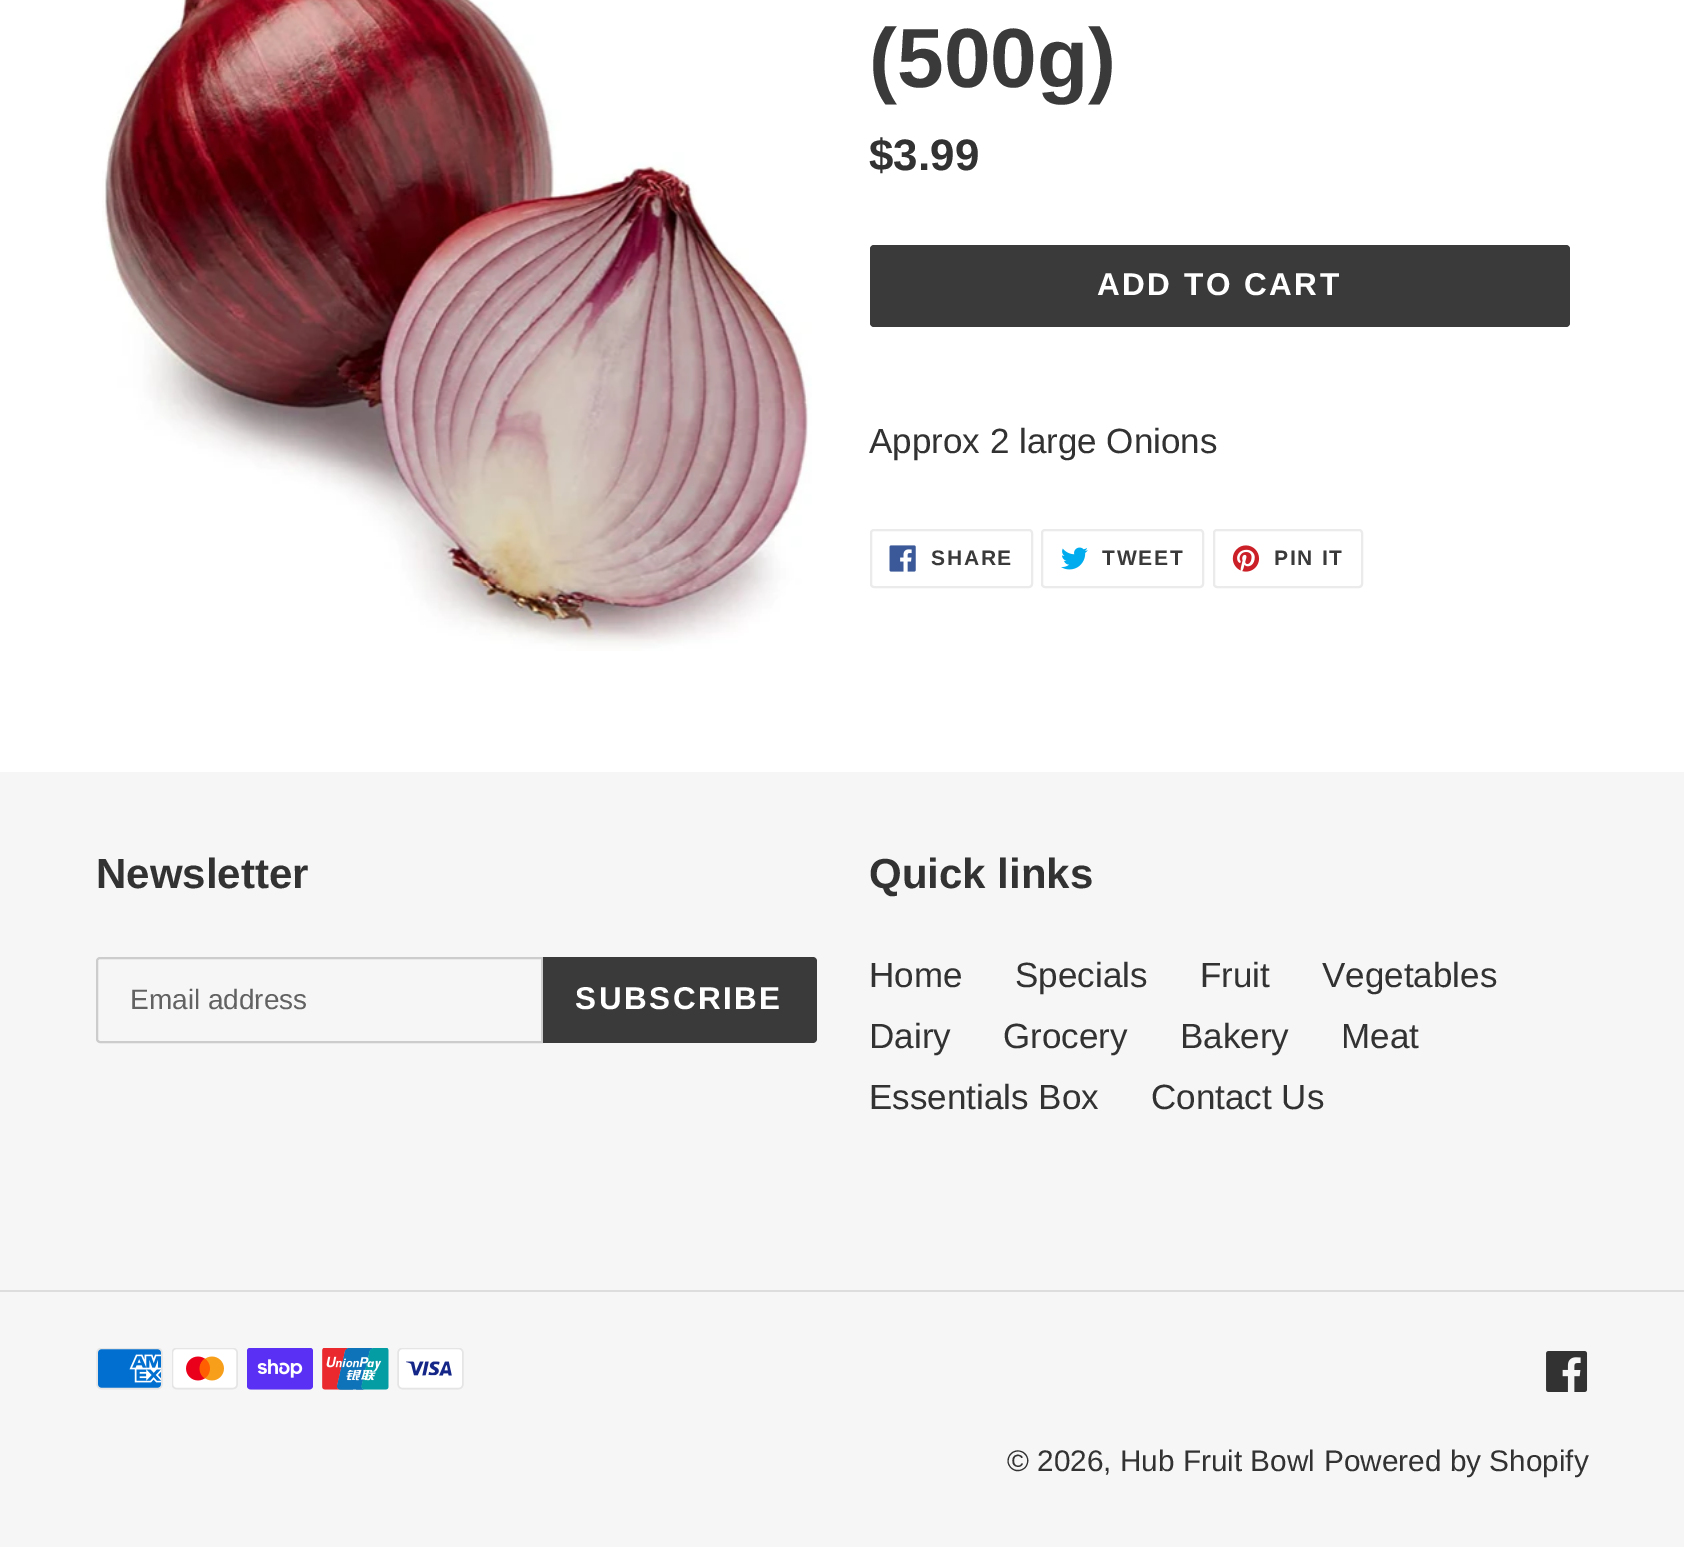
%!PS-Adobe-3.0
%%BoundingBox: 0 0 1684 1547
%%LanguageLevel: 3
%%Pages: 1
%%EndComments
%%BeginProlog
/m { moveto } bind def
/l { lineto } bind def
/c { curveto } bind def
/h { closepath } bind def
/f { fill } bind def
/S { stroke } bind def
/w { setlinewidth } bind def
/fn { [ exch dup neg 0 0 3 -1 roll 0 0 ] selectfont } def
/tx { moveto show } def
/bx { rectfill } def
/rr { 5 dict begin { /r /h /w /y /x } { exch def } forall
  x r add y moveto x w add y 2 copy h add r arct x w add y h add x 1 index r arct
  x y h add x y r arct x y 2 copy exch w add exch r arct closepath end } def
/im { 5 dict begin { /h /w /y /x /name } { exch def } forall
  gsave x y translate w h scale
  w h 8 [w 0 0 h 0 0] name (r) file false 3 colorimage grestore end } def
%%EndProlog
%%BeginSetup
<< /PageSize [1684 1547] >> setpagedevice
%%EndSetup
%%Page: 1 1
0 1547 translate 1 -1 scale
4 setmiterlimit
1 setgray
0 0 1684 1547 bx
(image0.raw) 102 0 710 651 im
/LiberationSans-Bold 84 fn
0.227 setgray
(\(500g\)) 869 87 tx
/LiberationSans-Bold 44 fn
0.2 0.196 0.196 setrgbcolor
($3.99) 869 170 tx
0.227 setgray
870 245 700 82 4 rr f
/LiberationSans-Bold 31.5 fn
1 setgray
1097 295 m 2.5 0 (ADD TO CART) ashow
/LiberationSans-Regular 35 fn
0.2 0.196 0.196 setrgbcolor
(Approx 2 large Onions) 869 453 tx
0.922 setgray
2 w
871 530 161 57 3 rr S
(image1.raw) 889 545 27 27 im
/LiberationSans-Bold 21 fn
0.227 setgray
931 565 m 1.75 0 (SHARE) ashow
0.922 setgray
1042 530 161 57 3 rr S
(image2.raw) 1061 547 27 23 im
0.227 setgray
1102 565 m 1.75 0 (TWEET) ashow
0.922 setgray
1214 530 148 57 3 rr S
(image3.raw) 1232 545 28 27 im
0.227 setgray
1274 565 m 1.75 0 (PIN IT) ashow
0.965 setgray
0 772 1684 775 bx
/LiberationSans-Bold 42 fn
0.2 0.196 0.196 setrgbcolor
(Newsletter) 96 888 tx
0.8 setgray
100 958 m 542 958 l 542 1042 l 100 1042 l 98.5 1042 97 1040.5 97 1039 c 97 961 l 97 959.5 98.5 958 100 958 c h S
/LiberationSans-Regular 28 fn
0.384 setgray
(Email address) 130 1009 tx
0.227 setgray
543 957 m 813 957 l 815 957 817 959 817 961 c 817 1039 l 817 1041 815 1043 813 1043 c 543 1043 l h f
/LiberationSans-Bold 31.5 fn
1 setgray
575 1009 m 2.5 0 (SUBSCRIBE) ashow
/LiberationSans-Bold 42 fn
0.2 0.196 0.196 setrgbcolor
(Quick links) 869 888 tx
/LiberationSans-Regular 35 fn
(Home) 869 987 tx
(Specials) 1015 987 tx
(Fruit) 1200 987 tx
(Vegetables) 1322 987 tx
(Dairy) 869 1048 tx
(Grocery) 1003 1048 tx
(Bakery) 1180 1048 tx
(Meat) 1341 1048 tx
(Essentials Box) 869 1109 tx
(Contact Us) 1151 1109 tx
0.867 setgray
0 1290 1684 2 bx
(image4.raw) 96 1348 67 42 im
(image5.raw) 172 1348 66 42 im
(image6.raw) 247 1348 66 42 im
(image7.raw) 322 1348 67 42 im
(image8.raw) 397 1348 67 42 im
(image9.raw) 1546 1351 42 41 im
/LiberationSans-Regular 29.75 fn
0.2 0.196 0.196 setrgbcolor
(© 2026, Hub Fruit Bowl) 1007 1471 tx
(Powered by Shopify) 1324 1471 tx
showpage
%%EOF
